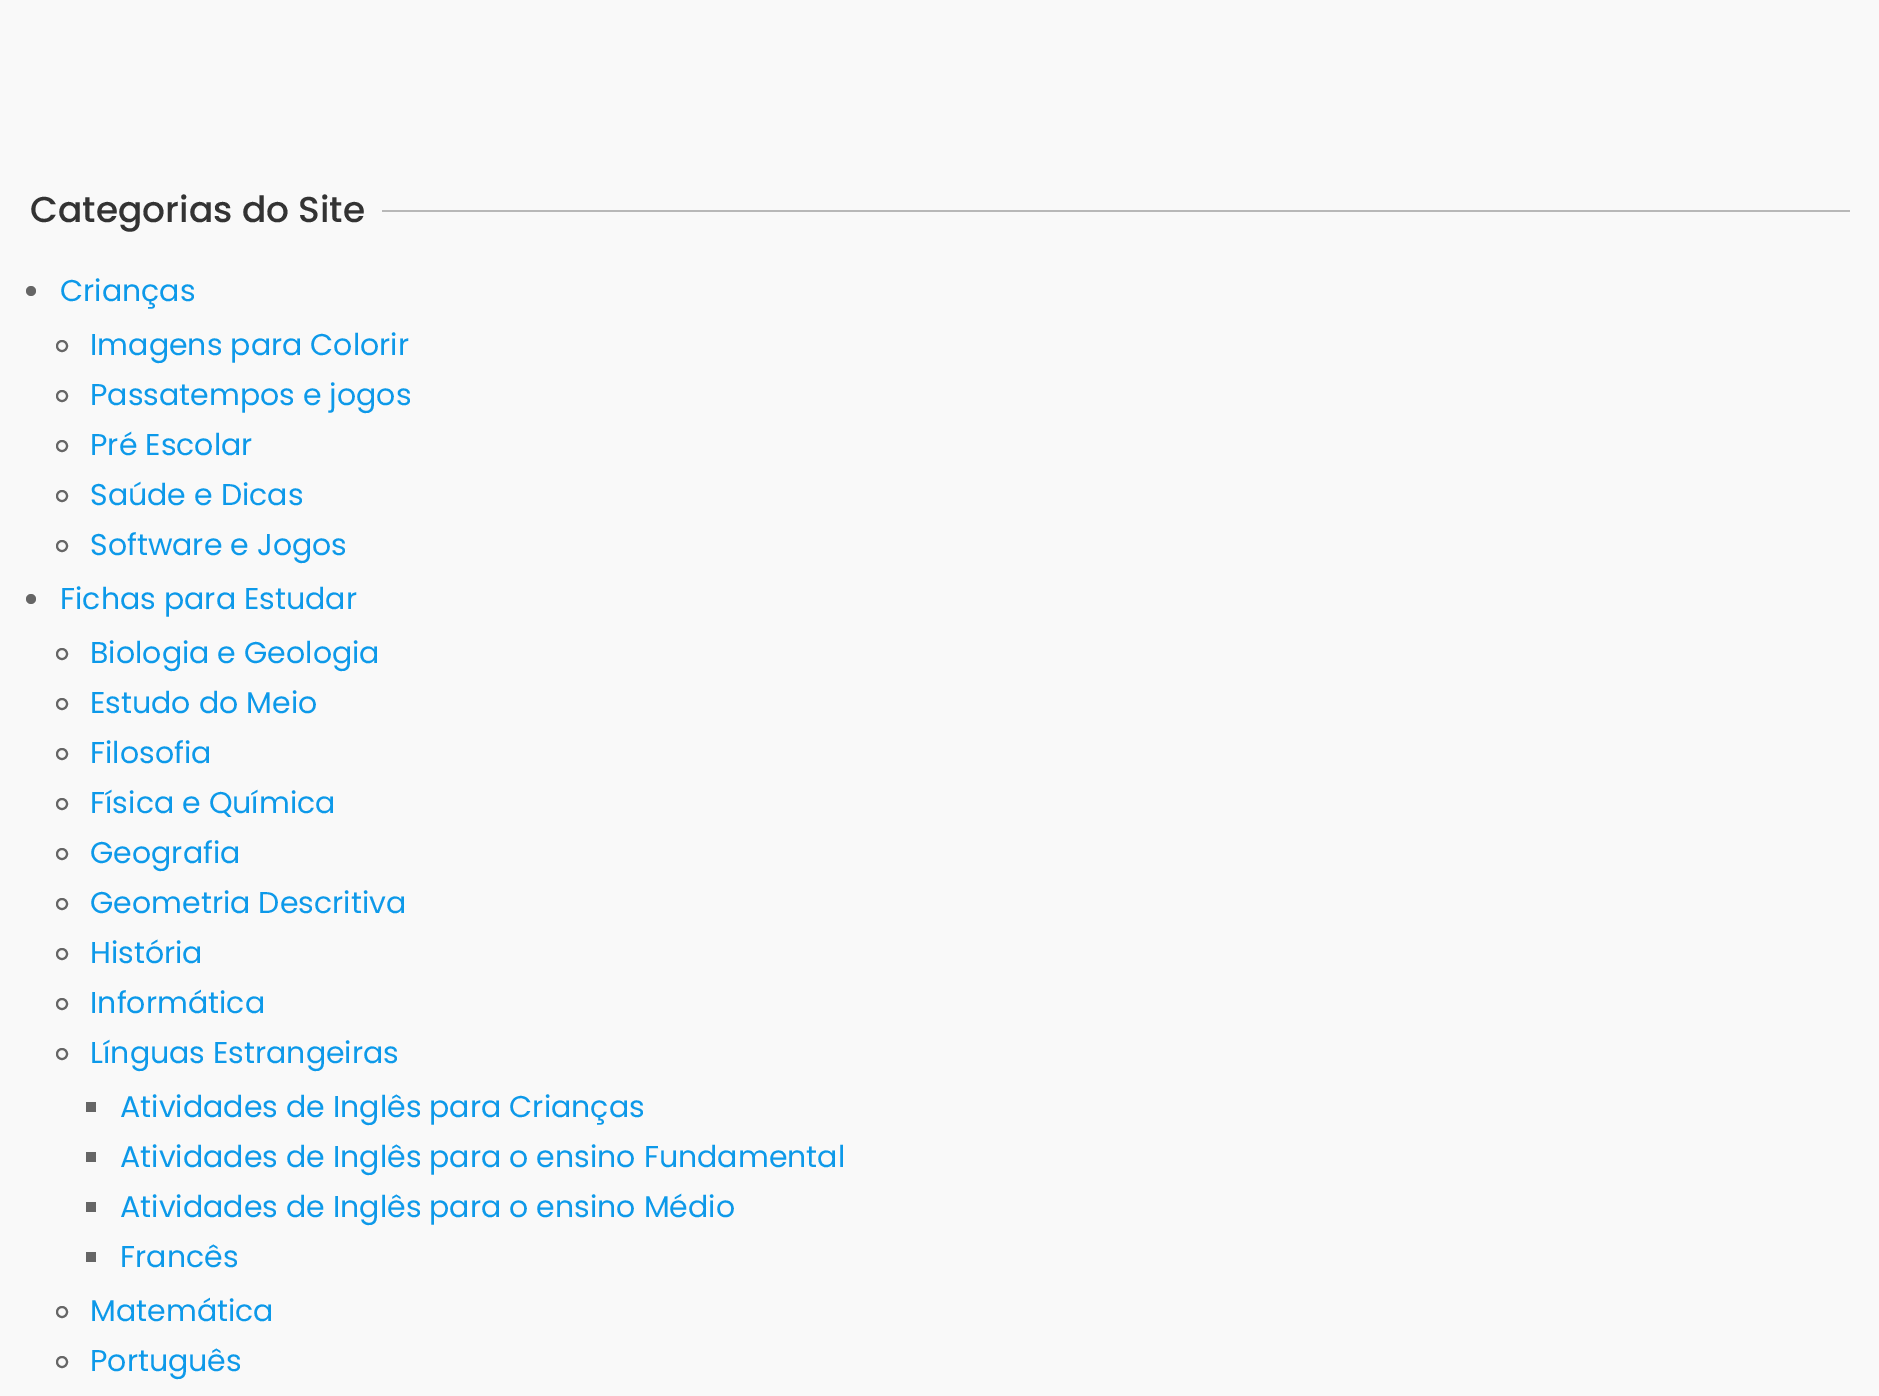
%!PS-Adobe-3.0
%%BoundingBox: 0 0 1879 1396
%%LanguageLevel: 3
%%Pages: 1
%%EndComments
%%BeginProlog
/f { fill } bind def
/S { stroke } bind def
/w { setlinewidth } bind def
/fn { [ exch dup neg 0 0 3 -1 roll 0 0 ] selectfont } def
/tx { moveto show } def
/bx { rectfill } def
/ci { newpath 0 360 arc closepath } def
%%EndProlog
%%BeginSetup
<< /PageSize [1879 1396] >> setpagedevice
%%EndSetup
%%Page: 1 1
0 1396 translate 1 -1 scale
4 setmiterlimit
0.976 setgray
0 0 1879 1396 bx
/Poppins-Medium 36 fn
0.2 setgray
(Categorias do Site) 30 222 tx
0.722 setgray
382 210 1468 2 bx
0.4 setgray
31 291 5 ci f
/Poppins-Regular 30 fn
0.051 0.6 0.914 setrgbcolor
(Crianças) 60 301 tx
0.4 setgray
2 w
62 346 5 ci S
0.051 0.6 0.914 setrgbcolor
(Imagens para Colorir) 90 355 tx
0.4 setgray
62 396 5 ci S
0.051 0.6 0.914 setrgbcolor
(Passatempos e jogos) 90 405 tx
0.4 setgray
62 446 5 ci S
0.051 0.6 0.914 setrgbcolor
(Pré Escolar) 90 455 tx
0.4 setgray
62 496 5 ci S
0.051 0.6 0.914 setrgbcolor
(Saúde e Dicas) 90 505 tx
0.4 setgray
62 546 5 ci S
0.051 0.6 0.914 setrgbcolor
(Software e Jogos) 90 555 tx
0.4 setgray
31 599 5 ci f
0.051 0.6 0.914 setrgbcolor
(Fichas para Estudar) 60 609 tx
0.4 setgray
62 654 5 ci S
0.051 0.6 0.914 setrgbcolor
(Biologia e Geologia) 90 663 tx
0.4 setgray
62 704 5 ci S
0.051 0.6 0.914 setrgbcolor
(Estudo do Meio) 90 713 tx
0.4 setgray
62 754 5 ci S
0.051 0.6 0.914 setrgbcolor
(Filosofia) 90 763 tx
0.4 setgray
62 804 5 ci S
0.051 0.6 0.914 setrgbcolor
(Física e Química) 90 813 tx
0.4 setgray
62 854 5 ci S
0.051 0.6 0.914 setrgbcolor
(Geografia) 90 863 tx
0.4 setgray
62 904 5 ci S
0.051 0.6 0.914 setrgbcolor
(Geometria Descritiva) 90 913 tx
0.4 setgray
62 954 5 ci S
0.051 0.6 0.914 setrgbcolor
(História) 90 963 tx
0.4 setgray
62 1004 5 ci S
0.051 0.6 0.914 setrgbcolor
(Informática) 90 1013 tx
0.4 setgray
62 1054 5 ci S
0.051 0.6 0.914 setrgbcolor
(Línguas Estrangeiras) 90 1063 tx
0.4 setgray
86 1102 10 10 bx
0.051 0.6 0.914 setrgbcolor
(Atividades de Inglês para Crianças) 120 1117 tx
0.4 setgray
86 1152 10 10 bx
0.051 0.6 0.914 setrgbcolor
(Atividades de Inglês para o ensino Fundamental) 120 1167 tx
0.4 setgray
86 1202 10 10 bx
0.051 0.6 0.914 setrgbcolor
(Atividades de Inglês para o ensino Médio) 120 1217 tx
0.4 setgray
86 1252 10 10 bx
0.051 0.6 0.914 setrgbcolor
(Francês) 120 1267 tx
0.4 setgray
62 1312 5 ci S
0.051 0.6 0.914 setrgbcolor
(Matemática) 90 1321 tx
0.4 setgray
62 1362 5 ci S
0.051 0.6 0.914 setrgbcolor
(Português) 90 1371 tx
showpage
%%EOF
